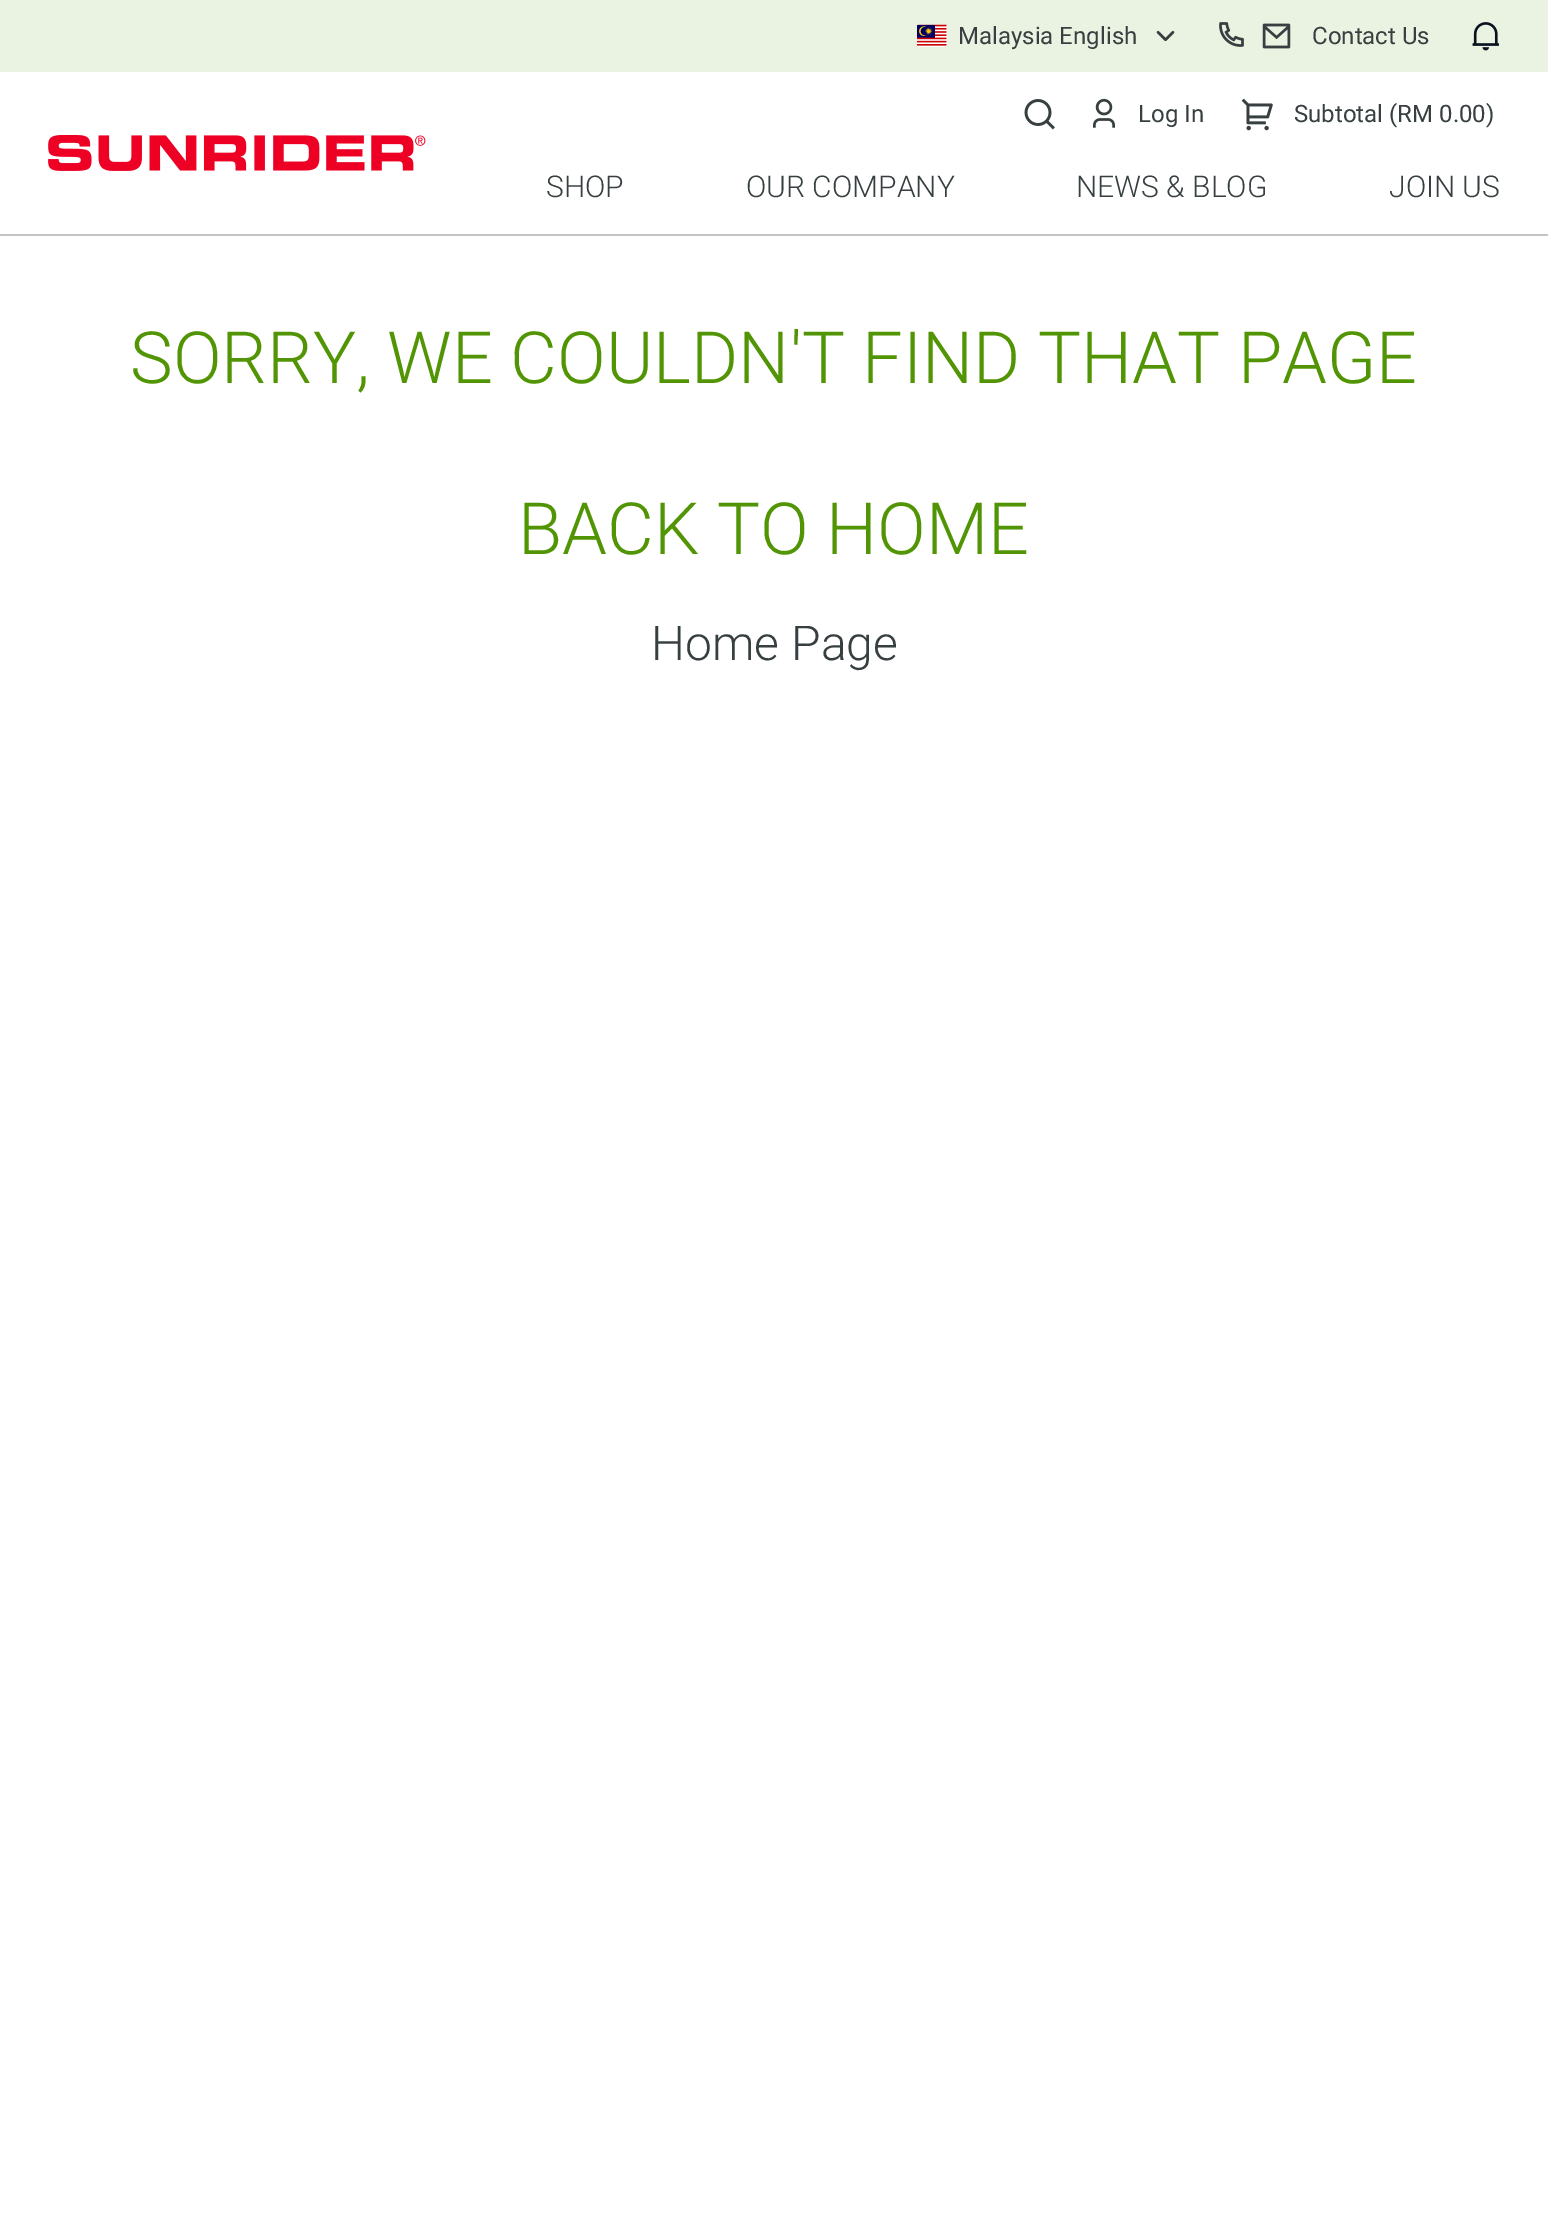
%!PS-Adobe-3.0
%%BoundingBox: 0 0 1548 2235
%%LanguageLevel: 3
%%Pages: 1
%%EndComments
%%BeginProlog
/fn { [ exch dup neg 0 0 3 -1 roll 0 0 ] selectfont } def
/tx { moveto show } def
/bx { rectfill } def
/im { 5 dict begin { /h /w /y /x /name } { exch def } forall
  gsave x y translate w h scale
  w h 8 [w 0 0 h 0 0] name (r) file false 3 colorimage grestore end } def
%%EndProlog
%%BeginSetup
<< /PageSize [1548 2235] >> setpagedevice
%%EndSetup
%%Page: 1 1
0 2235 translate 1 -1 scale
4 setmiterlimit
1 setgray
0 0 1548 2235 bx
0.918 0.949 0.882 setrgbcolor
0 0 1548 72 bx
(image0.raw) 917 24 30 23 im
/Roboto-Regular 24 fn
0.216 0.247 0.255 setrgbcolor
(Malaysia English) 958 44 tx
(image1.raw) 1156 30 19 12 im
(image2.raw) 1219 22 25 25 im
(image3.raw) 1262 23 29 26 im
(Contact Us) 1312 44 tx
(image4.raw) 1472 22 27 29 im
0.769 setgray
0 234 1548 2 bx
(image5.raw) 1024 99 31 31 im
(image6.raw) 1093 98 22 30 im
0.216 0.247 0.255 setrgbcolor
(Log In) 1138 122 tx
(image7.raw) 1241 98 32 33 im
(Subtotal \(RM 0.00\)) 1294 122 tx
(image8.raw) 48 135 378 36 im
/Roboto-Light 30 fn
(SHOP) 546 197 tx
(OUR COMPANY) 746 197 tx
(NEWS & BLOG) 1076 197 tx
(JOIN US) 1389 197 tx
/Roboto-Light 72 fn
0.322 0.584 0.016 setrgbcolor
(SORRY, WE COULDN'T FIND THAT PAGE) 130 383 tx
(BACK TO HOME) 518 554 tx
/Roboto-Light 48 fn
0.216 0.247 0.255 setrgbcolor
(Home Page) 651 660 tx
showpage
%%EOF
